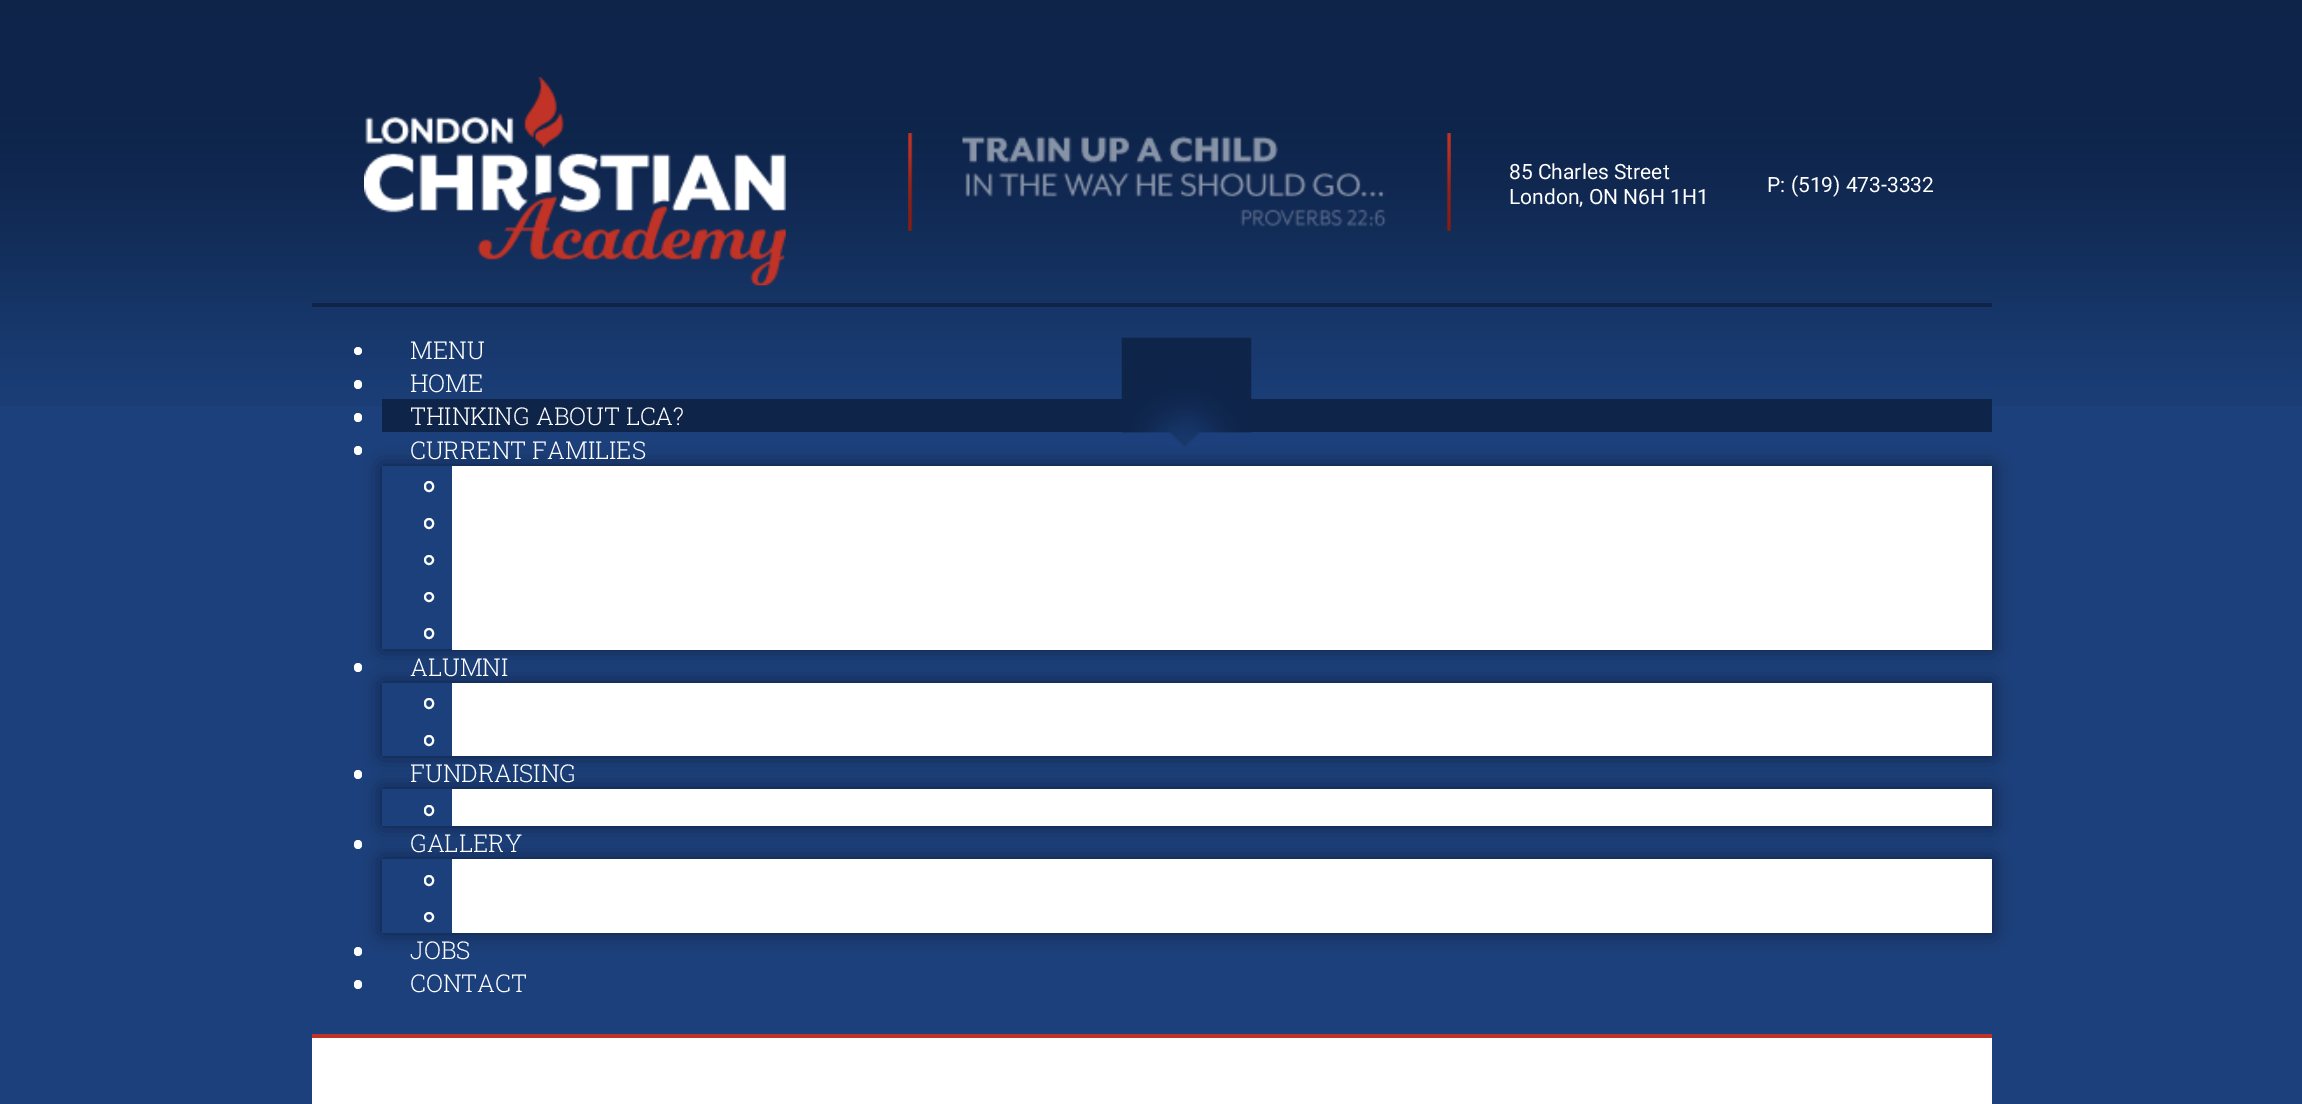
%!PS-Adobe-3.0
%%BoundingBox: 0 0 2302 1104
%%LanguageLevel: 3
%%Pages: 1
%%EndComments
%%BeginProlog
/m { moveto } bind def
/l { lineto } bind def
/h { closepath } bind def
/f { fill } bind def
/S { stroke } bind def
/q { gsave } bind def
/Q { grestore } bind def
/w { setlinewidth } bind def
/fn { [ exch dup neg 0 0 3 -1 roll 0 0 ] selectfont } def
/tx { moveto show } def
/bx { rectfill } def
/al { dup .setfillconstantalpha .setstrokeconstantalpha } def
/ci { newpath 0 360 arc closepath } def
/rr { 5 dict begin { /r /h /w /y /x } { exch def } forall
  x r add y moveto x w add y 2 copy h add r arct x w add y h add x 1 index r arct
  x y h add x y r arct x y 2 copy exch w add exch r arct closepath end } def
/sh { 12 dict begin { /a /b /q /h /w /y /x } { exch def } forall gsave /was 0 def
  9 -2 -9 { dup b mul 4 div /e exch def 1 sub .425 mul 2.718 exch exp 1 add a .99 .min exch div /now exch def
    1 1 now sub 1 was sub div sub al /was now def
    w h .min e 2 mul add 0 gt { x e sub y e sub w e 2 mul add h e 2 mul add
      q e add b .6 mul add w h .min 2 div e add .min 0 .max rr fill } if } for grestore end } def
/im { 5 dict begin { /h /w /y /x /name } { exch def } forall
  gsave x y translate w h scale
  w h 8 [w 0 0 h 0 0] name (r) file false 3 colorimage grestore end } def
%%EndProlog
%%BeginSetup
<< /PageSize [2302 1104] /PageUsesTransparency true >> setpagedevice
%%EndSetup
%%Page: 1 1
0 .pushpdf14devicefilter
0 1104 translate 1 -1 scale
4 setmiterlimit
0.11 0.251 0.482 setrgbcolor
0 0 2302 1104 bx
(image0.raw) 0 0 2302 406 im
(image1.raw) 364 77 422 209 im
(image2.raw) 908 133 543 98 im
/Roboto-Regular 21 fn
1 setgray
(85 Charles Street) 1509 179 tx
(London, ON N6H 1H1) 1509 204 tx
(P: \(519\) 473-3332) 1767 192 tx
0.055 0.141 0.286 setrgbcolor
312 303 1680 4 bx
1 setgray
358 351 4 ci f
/RobotoSlab-Light 24.5 fn
(MENU) 410 359 tx
354 380 8 9 4 rr f
(HOME) 410 392 tx
0.055 0.141 0.286 setrgbcolor
382 399 1610 33 bx
1 setgray
354 413 8 9 4 rr f
(THINKING ABOUT LCA?) 410 425 tx
(image3.raw) 1121 337 131 110 im
q
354 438 m 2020 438 l 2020 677 l 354 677 l h 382 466 m 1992 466 l 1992 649 l 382 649 l h eoclip newpath
0 setgray
382 466 1610 183 0 9 0.5 sh
Q
452 466 1540 184 bx
2 w
425 482 8 9 4 rr S
425 519 8 9 4 rr S
429 560 4 ci S
429 597 4 ci S
425 629 8 9 4 rr S
354 446 8 9 4 rr f
(CURRENT FAMILIES) 410 459 tx
q
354 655 m 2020 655 l 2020 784 l 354 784 l h 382 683 m 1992 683 l 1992 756 l 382 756 l h eoclip newpath
0 setgray
382 683 1610 73 0 9 0.5 sh
Q
452 683 1540 73 bx
425 699 8 9 4 rr S
425 736 8 9 4 rr S
354 663 8 9 4 rr f
(ALUMNI) 410 676 tx
q
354 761 m 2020 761 l 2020 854 l 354 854 l h 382 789 m 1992 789 l 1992 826 l 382 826 l h eoclip newpath
0 setgray
382 789 1610 37 0 9 0.5 sh
Q
452 789 1540 37 bx
425 806 8 9 4 rr S
354 770 8 9 4 rr f
(FUNDRAISING) 410 782 tx
q
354 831 m 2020 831 l 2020 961 l 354 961 l h 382 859 m 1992 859 l 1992 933 l 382 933 l h eoclip newpath
0 setgray
382 859 1610 74 0 9 0.5 sh
Q
452 859 1540 74 bx
425 876 8 9 4 rr S
429 917 4 ci S
354 840 8 9 4 rr f
(GALLERY) 410 852 tx
354 947 8 9 4 rr f
(JOBS) 410 959 tx
354 980 8 9 4 rr f
(CONTACT) 410 992 tx
312 1038 1680 66 bx
0.753 0.2 0.149 setrgbcolor
312 1034 1680 4 bx
.poppdf14devicefilter showpage
%%EOF
